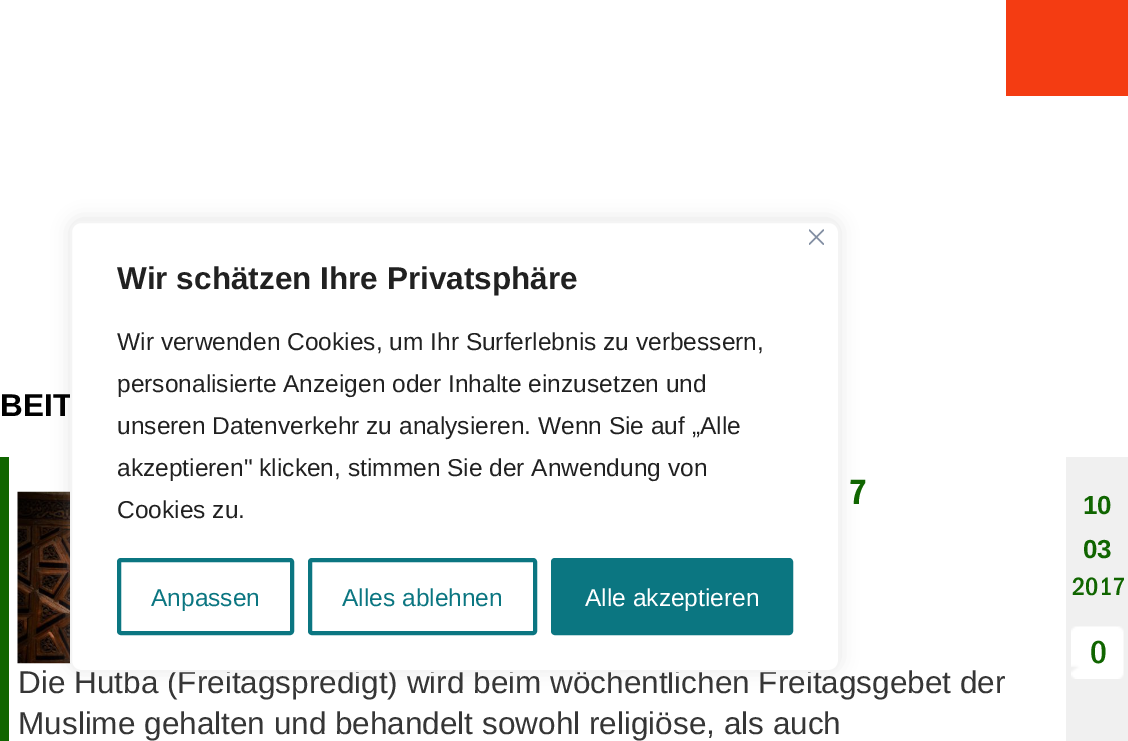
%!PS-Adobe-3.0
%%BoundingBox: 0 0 1128 741
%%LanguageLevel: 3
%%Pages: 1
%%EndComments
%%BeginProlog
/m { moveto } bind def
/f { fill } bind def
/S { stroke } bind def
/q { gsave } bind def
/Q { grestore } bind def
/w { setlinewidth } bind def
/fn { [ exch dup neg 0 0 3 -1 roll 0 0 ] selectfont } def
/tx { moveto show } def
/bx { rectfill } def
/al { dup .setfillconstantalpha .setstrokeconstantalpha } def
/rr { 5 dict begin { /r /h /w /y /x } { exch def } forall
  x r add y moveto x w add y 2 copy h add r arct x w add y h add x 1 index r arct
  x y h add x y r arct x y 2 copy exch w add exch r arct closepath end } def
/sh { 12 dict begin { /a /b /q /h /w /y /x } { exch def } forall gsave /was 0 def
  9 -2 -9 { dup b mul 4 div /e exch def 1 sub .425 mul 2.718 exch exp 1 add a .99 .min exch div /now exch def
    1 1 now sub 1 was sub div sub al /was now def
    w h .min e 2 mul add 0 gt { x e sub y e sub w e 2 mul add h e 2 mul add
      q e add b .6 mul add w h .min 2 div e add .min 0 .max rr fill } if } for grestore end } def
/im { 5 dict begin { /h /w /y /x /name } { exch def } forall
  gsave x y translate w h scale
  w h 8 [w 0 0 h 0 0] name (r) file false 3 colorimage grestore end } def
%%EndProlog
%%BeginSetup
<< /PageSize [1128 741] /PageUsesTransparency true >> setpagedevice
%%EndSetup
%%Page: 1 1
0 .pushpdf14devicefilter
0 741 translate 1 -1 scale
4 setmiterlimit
1 setgray
0 0 1128 741 bx
0.957 0.235 0.071 setrgbcolor
1006 0 122 96 bx
(image1.raw) 17 491 54 173 im
0.675 0.671 0.671 setrgbcolor
70 219 770 451 11 9 0.3 sh
/LiberationSans-Bold 31.5 fn
0 setgray
(BEIT) 0 416 tx
/LiberationSans-Regular 31.5 fn
0.212 setgray
(Die Hutba \(Freitagspredigt\) wird beim wöchentlichen Freitagsgebet der) 18 693 tx
1 setgray
71 222 768 449 10 rr q f Q
0.957 setgray
2 w
S
(image0.raw) 809 229 15 16 im
/LiberationSans-Bold 31.5 fn
0.129 setgray
(Wir schätzen Ihre Privatsphäre) 117 289 tx
/LiberationSans-Regular 24.5 fn
(Wir verwenden Cookies, um Ihr Surferlebnis zu verbessern,) 117 350 tx
(personalisierte Anzeigen oder Inhalte einzusetzen und) 117 392 tx
(unseren Datenverkehr zu analysieren. Wenn Sie auf „Alle) 117 434 tx
(akzeptieren" klicken, stimmen Sie der Anwendung von) 117 476 tx
(Cookies zu.) 117 518 tx
0.043 0.463 0.506 setrgbcolor
4 w
119 560 173 73 2 rr S
(Anpassen) 151 606 tx
310 560 225 73 2 rr S
(Alles ablehnen) 342 606 tx
553 560 238 73 2 rr q f Q
S
1 setgray
(Alle akzeptieren) 585 606 tx
0.063 0.396 0 setrgbcolor
0 457 9 284 bx
/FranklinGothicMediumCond-Bold 35 fn
848 504 m 1 0 (7) ashow
0.941 setgray
1066 457 62 284 bx
/LiberationSans-Bold 26 fn
0.063 0.396 0 setrgbcolor
(10) 1083 514 tx
(03) 1083 558 tx
/FranklinGothicMediumCond-Medium 26 fn
(2017) 1072 595 tx
(image2.raw) 1071 626 53 53 im
/FranklinGothicMediumCond-Medium 33 fn
(0) 1090 663 tx
/LiberationSans-Regular 31.5 fn
0.212 setgray
(Muslime gehalten und behandelt sowohl religiöse, als auch) 18 734 tx
.poppdf14devicefilter showpage
%%EOF
